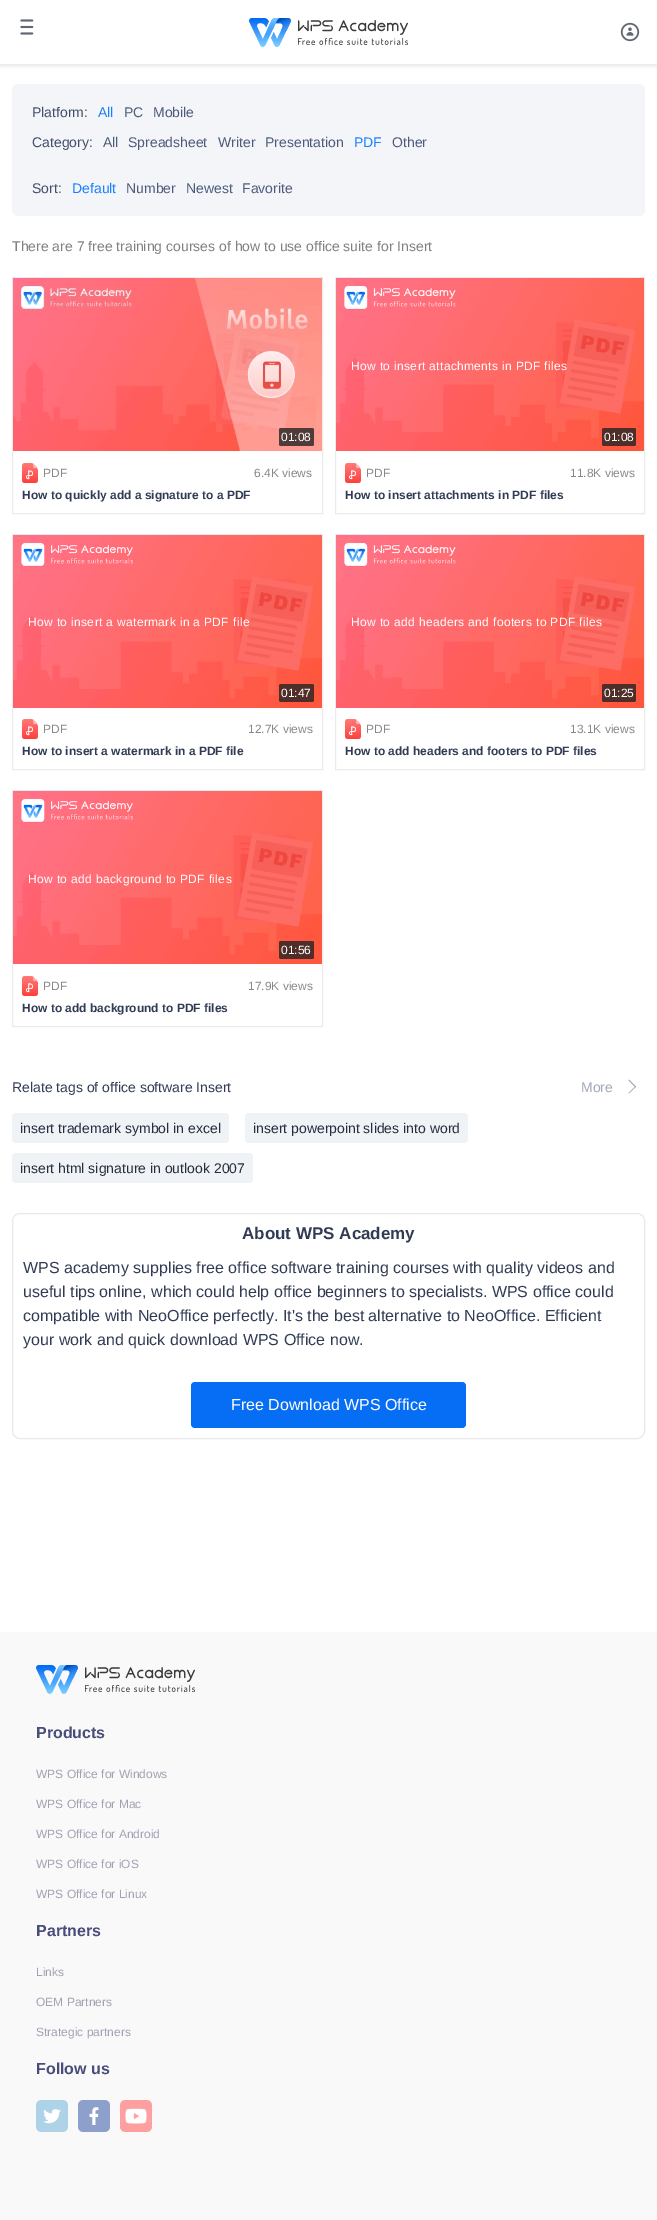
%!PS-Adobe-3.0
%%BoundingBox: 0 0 657 2220
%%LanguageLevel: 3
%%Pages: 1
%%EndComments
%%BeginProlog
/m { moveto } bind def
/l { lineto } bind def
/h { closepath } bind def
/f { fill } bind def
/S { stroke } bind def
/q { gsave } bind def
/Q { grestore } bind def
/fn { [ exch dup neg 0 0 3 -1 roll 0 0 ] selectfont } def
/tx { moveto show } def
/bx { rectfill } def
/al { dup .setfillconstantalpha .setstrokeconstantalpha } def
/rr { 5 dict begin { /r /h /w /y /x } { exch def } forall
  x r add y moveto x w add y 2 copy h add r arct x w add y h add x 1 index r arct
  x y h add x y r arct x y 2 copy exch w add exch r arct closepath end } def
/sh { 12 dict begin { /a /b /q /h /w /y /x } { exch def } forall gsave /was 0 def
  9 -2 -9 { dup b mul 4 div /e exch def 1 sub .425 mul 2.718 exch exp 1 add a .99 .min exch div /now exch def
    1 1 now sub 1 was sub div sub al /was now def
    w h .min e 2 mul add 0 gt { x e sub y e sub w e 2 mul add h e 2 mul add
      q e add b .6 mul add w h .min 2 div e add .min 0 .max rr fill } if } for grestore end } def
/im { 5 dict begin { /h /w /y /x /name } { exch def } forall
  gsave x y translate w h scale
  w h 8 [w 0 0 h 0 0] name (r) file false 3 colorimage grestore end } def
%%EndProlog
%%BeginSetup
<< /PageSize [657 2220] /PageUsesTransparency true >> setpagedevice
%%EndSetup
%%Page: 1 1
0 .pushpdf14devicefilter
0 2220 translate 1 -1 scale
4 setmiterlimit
1 setgray
0 0 657 2220 bx
q
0 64 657 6 rectclip
0.898 setgray
0 2 657 64 0 2 1 sh
Q
(image0.raw) 20 19 14 16 im
(image1.raw) 249 18 159 29 im
(image2.raw) 620 22 20 20 im
0.953 0.961 0.976 setrgbcolor
12 84 633 132 6 rr f
/LiberationSans-Regular 14 fn
0.255 0.306 0.412 setrgbcolor
(Platform:) 32 117 tx
0.094 0.502 1 setrgbcolor
(All) 98 117 tx
0.302 0.357 0.478 setrgbcolor
(PC) 124 117 tx
(Mobile) 153 117 tx
0.255 0.306 0.412 setrgbcolor
(Category:) 32 147 tx
0.302 0.357 0.478 setrgbcolor
(All) 103 147 tx
(Spreadsheet) 128 147 tx
(Writer) 218 147 tx
(Presentation) 265 147 tx
0.094 0.502 1 setrgbcolor
(PDF) 354 147 tx
0.302 0.357 0.478 setrgbcolor
(Other) 392 147 tx
0.255 0.306 0.412 setrgbcolor
(Sort:) 32 193 tx
0.094 0.502 1 setrgbcolor
(Default) 72 193 tx
0.302 0.357 0.478 setrgbcolor
(Number) 126 193 tx
(Newest) 186 193 tx
(Favorite) 242 193 tx
0.502 setgray
(There are 7 free training courses of how to use office suite for Insert) 12 251 tx
0.922 setgray
12.5 277.5 310 236 rectstroke
(image3.raw) 13 278 309 173 im
0.8 al
0.137 setgray
279 428 35 18 2 rr f
/LiberationSans-Regular 12 fn
1 al
1 setgray
(01:08) 281 441 tx
(image4.raw) 22 463 16 20 im
0.533 setgray
(PDF) 43 477 tx
(6.4K views) 254 477 tx
/LiberationSans-Bold 12 fn
0.192 0.235 0.329 setrgbcolor
(How to quickly add a signature to a PDF) 22 499 tx
0.922 setgray
335.5 277.5 309 236 rectstroke
(image5.raw) 336 278 308 173 im
/LiberationSans-Regular 12 fn
1 setgray
351 370 m 0.35 0 (How to insert attachments in PDF files) ashow
0.8 al
0.137 setgray
602 428 34 18 2 rr f
1 al
1 setgray
(01:08) 604 441 tx
(image4.raw) 345 463 16 20 im
0.533 setgray
(PDF) 366 477 tx
(11.8K views) 570 477 tx
/LiberationSans-Bold 12 fn
0.192 0.235 0.329 setrgbcolor
(How to insert attachments in PDF files) 345 499 tx
0.922 setgray
12.5 534.5 310 235 rectstroke
(image6.raw) 13 535 309 173 im
/LiberationSans-Regular 12 fn
1 setgray
28 626 m 0.35 0 (How to insert a watermark in a PDF file) ashow
0.8 al
0.137 setgray
279 684 35 18 2 rr f
1 al
1 setgray
(01:47) 281 697 tx
(image4.raw) 22 719 16 20 im
0.533 setgray
(PDF) 43 733 tx
(12.7K views) 248 733 tx
/LiberationSans-Bold 12 fn
0.192 0.235 0.329 setrgbcolor
(How to insert a watermark in a PDF file) 22 755 tx
0.922 setgray
335.5 534.5 309 235 rectstroke
(image5.raw) 336 535 308 173 im
/LiberationSans-Regular 12 fn
1 setgray
351 626 m 0.35 0 (How to add headers and footers to PDF files) ashow
0.8 al
0.137 setgray
602 684 34 18 2 rr f
1 al
1 setgray
(01:25) 604 697 tx
(image4.raw) 345 719 16 20 im
0.533 setgray
(PDF) 366 733 tx
(13.1K views) 570 733 tx
/LiberationSans-Bold 12 fn
0.192 0.235 0.329 setrgbcolor
(How to add headers and footers to PDF files) 345 755 tx
0.922 setgray
12.5 790.5 310 236 rectstroke
(image6.raw) 13 791 309 173 im
/LiberationSans-Regular 12 fn
1 setgray
28 883 m 0.35 0 (How to add background to PDF files) ashow
0.8 al
0.137 setgray
279 941 35 18 2 rr f
1 al
1 setgray
(01:56) 281 954 tx
(image4.raw) 22 976 16 20 im
0.533 setgray
(PDF) 43 990 tx
(17.9K views) 248 990 tx
/LiberationSans-Bold 12 fn
0.192 0.235 0.329 setrgbcolor
(How to add background to PDF files) 22 1012 tx
q
12 1079 219 16 rectclip
/LiberationSans-Regular 14 fn
(Relate tags of office software Insert) 12 1092 tx
Q
/LiberationSans-Regular 14 fn
0.627 0.659 0.725 setrgbcolor
(More) 581 1092 tx
629 1079.5 m 636 1086.5 l 635.5 1087.5 l 628.5 1080.5 l h f
635.5 1086 m 636 1086.5 l 629 1093.5 l 628.5 1093 l h f
0.937 0.953 0.965 setrgbcolor
12 1113 217 30 4 rr f
0.145 0.173 0.239 setrgbcolor
(insert trademark symbol in excel) 20 1133 tx
0.937 0.953 0.965 setrgbcolor
245 1113 223 30 4 rr f
0.145 0.173 0.239 setrgbcolor
(insert powerpoint slides into word) 253 1133 tx
0.937 0.953 0.965 setrgbcolor
12 1153 241 30 4 rr f
0.145 0.173 0.239 setrgbcolor
(insert html signature in outlook 2007) 20 1173 tx
0.914 setgray
12.5 1213.5 632 225 7.5 rr S
/LiberationSans-Bold 17 fn
0.192 0.235 0.329 setrgbcolor
(About WPS Academy) 242 1239 tx
/LiberationSans-Regular 16 fn
(WPS academy supplies free office software training courses with quality videos and) 23 1273 tx
(useful tips online, which could help office beginners to specialists. WPS office could) 23 1297 tx
(compatible with NeoOffice perfectly. It's the best alternative to NeoOffice. Efficient) 23 1321 tx
(your work and quick download WPS Office now.) 23 1345 tx
0.024 0.427 0.961 setrgbcolor
191 1382 275 46 4 rr f
1 setgray
(Free Download WPS Office) 231 1410 tx
0.976 setgray
0 1632 657 588 bx
(image7.raw) 36 1665 159 29 im
/LiberationSans-Bold 16 fn
0.282 0.302 0.478 setrgbcolor
(Products) 36 1738 tx
/LiberationSans-Regular 12 fn
0.631 0.631 0.702 setrgbcolor
(WPS Office for Windows) 36 1778 tx
(WPS Office for Mac) 36 1808 tx
(WPS Office for Android) 36 1838 tx
(WPS Office for iOS) 36 1868 tx
(WPS Office for Linux) 36 1898 tx
/LiberationSans-Bold 16 fn
0.282 0.302 0.478 setrgbcolor
(Partners) 36 1936 tx
/LiberationSans-Regular 12 fn
0.631 0.631 0.702 setrgbcolor
(Links) 36 1976 tx
(OEM Partners) 36 2006 tx
(Strategic partners) 36 2036 tx
/LiberationSans-Bold 16 fn
0.282 0.302 0.478 setrgbcolor
(Follow us) 36 2074 tx
(image8.raw) 36 2100 32 32 im
(image9.raw) 78 2100 32 32 im
(image10.raw) 120 2100 32 32 im
.poppdf14devicefilter showpage
%%EOF
